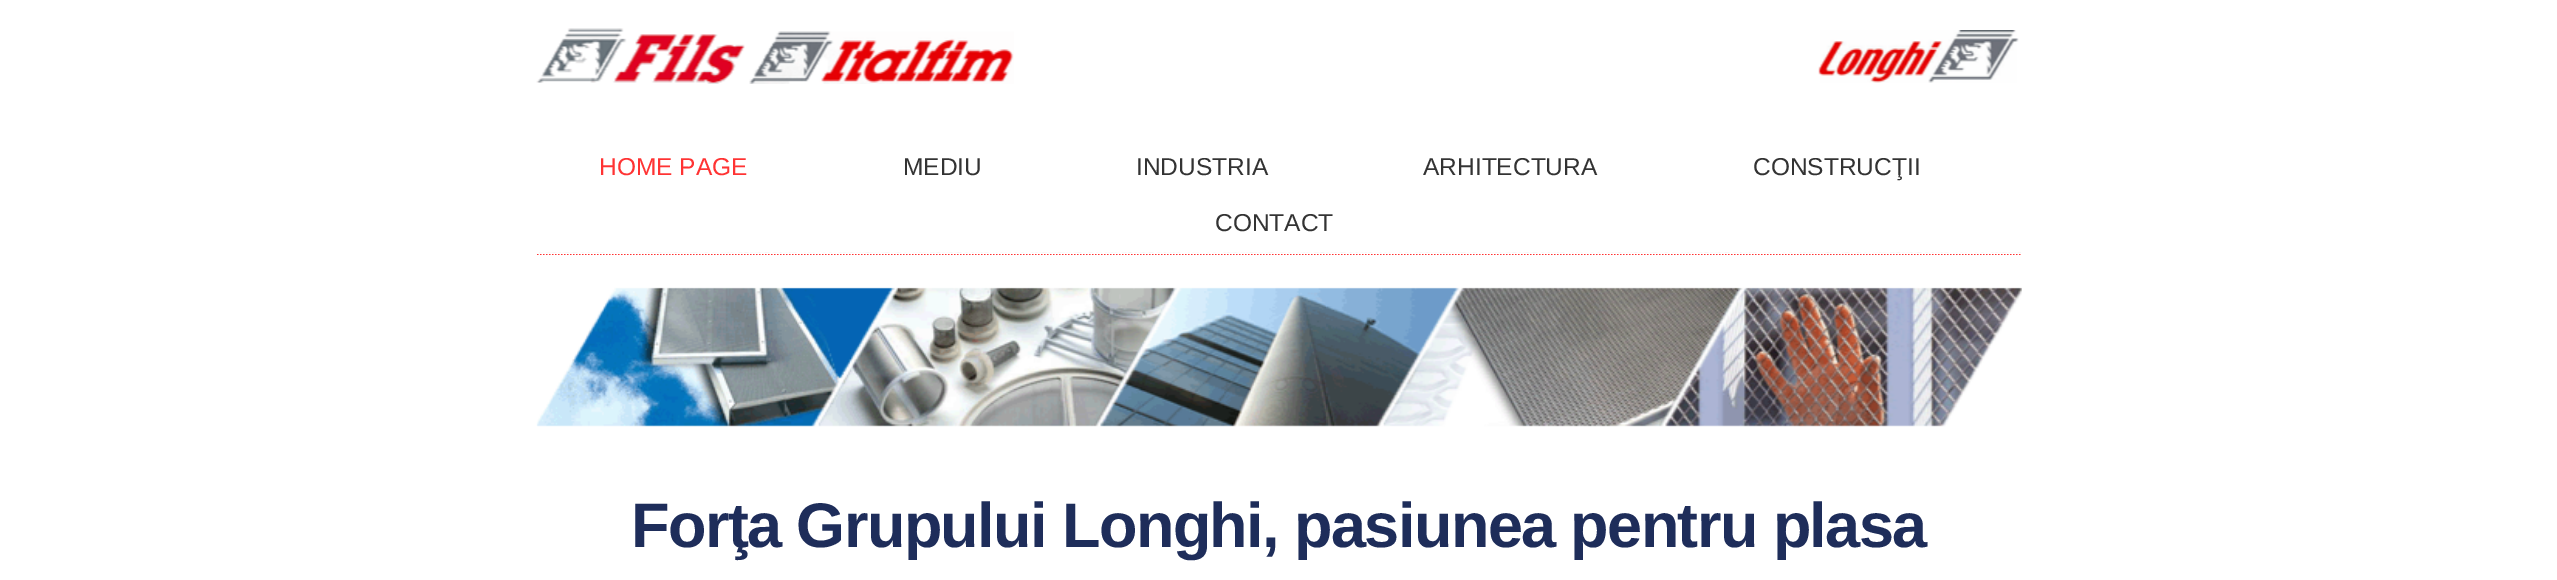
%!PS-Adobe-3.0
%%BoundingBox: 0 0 2557 580
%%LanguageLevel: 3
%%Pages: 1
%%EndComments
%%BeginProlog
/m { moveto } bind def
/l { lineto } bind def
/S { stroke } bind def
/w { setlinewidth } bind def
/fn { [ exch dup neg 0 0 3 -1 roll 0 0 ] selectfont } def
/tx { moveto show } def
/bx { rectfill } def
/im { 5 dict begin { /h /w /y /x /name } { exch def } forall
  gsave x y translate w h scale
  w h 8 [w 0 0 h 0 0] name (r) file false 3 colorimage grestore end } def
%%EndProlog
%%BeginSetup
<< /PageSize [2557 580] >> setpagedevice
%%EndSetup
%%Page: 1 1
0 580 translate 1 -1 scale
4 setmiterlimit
1 setgray
0 0 2557 580 bx
(image0.raw) 536 28 478 56 im
(image1.raw) 1818 30 201 53 im
1 0.2 0.2 setrgbcolor
1.5 w
[1.5 1.5] 0 setdash
537 254 m 2022 254 l S
/LiberationSans-Regular 24.5 fn
(HOME PAGE) 599 175 tx
0.2 setgray
(MEDIU) 903 175 tx
(INDUSTRIA) 1136 175 tx
(ARHITECTURA) 1423 175 tx
(CONSTRUCŢII) 1753 175 tx
(CONTACT) 1215 231 tx
1 setgray
537 253 1485 1 bx
(image2.raw) 539 252 1482 1 im
(image3.raw) 536 287 1486 140 im
/LiberationSans-Bold 63 fn
0.118 0.176 0.353 setrgbcolor
631 547 m -1.6 0 (Forţa Grupului Longhi, pasiunea pentru plasa) ashow
showpage
%%EOF
